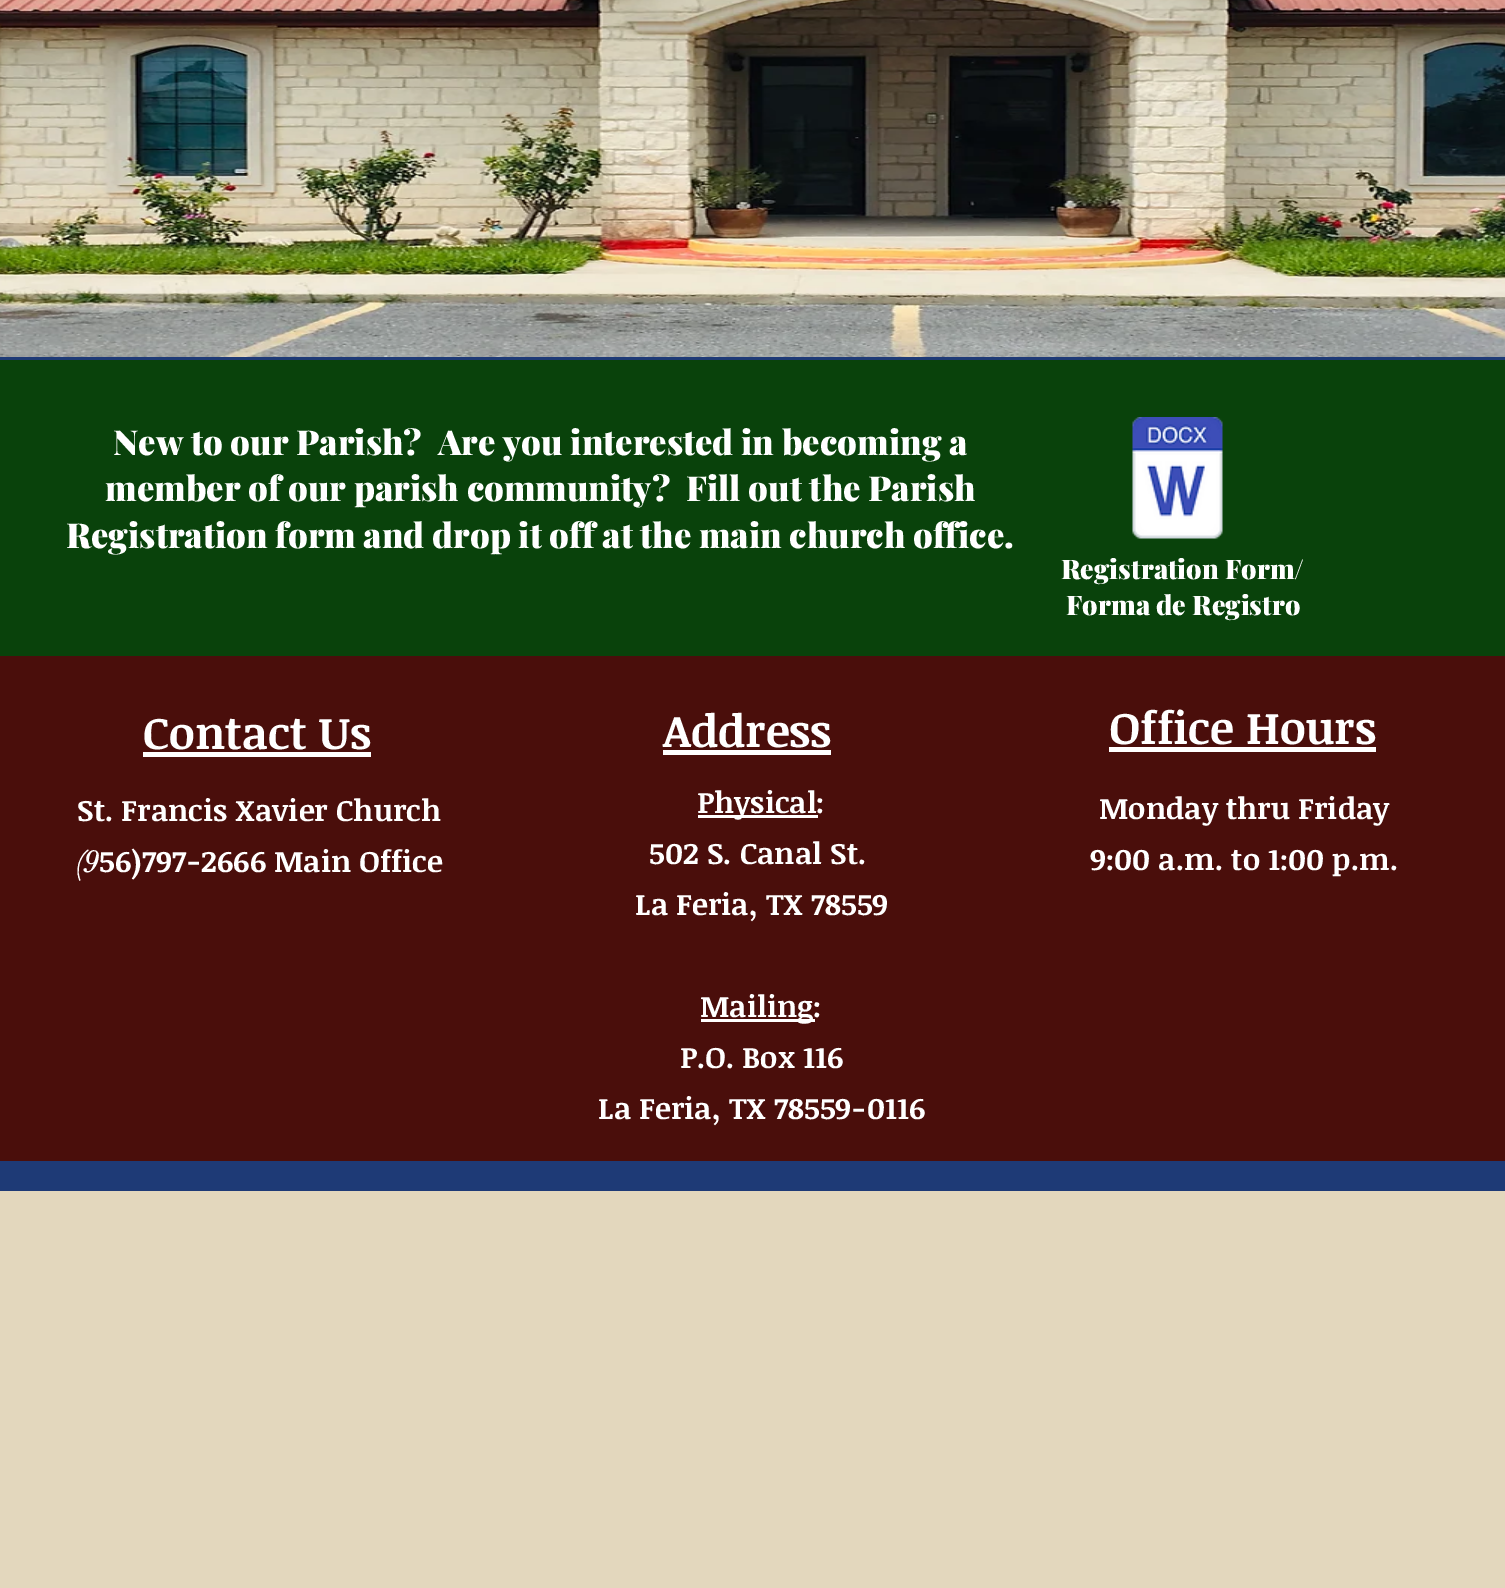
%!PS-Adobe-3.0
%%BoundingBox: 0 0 1505 1588
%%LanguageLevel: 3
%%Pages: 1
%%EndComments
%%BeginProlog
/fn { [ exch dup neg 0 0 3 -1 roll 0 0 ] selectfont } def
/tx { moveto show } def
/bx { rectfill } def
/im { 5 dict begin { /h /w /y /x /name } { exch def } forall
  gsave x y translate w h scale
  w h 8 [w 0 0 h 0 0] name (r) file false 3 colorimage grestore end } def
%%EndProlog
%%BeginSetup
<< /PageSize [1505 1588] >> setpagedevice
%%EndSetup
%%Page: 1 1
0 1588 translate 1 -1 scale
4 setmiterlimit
0.89 0.843 0.741 setrgbcolor
0 0 1505 1588 bx
0.118 0.227 0.463 setrgbcolor
0 357 1505 834 bx
(image0.raw) 0 0 1505 357 im
0.035 0.259 0.043 setrgbcolor
0 360 1505 296 bx
/PlayfairDisplay-Black 34.5 fn
1 setgray
(New to our Parish?  Are you interested in becoming a) 113 455 tx
(member of our parish community?  Fill out the Parish) 105 501 tx
(Registration form and drop it off at the main church office.) 66 548 tx
(image1.raw) 1132 417 91 122 im
/PlayfairDisplay-Black 27 fn
(Registration Form/) 1061 579 tx
(Forma de Registro) 1066 615 tx
0.29 0.055 0.043 setrgbcolor
0 656 1505 505 bx
/NoticiaText-Bold 45 fn
1 setgray
(Contact Us) 143 749 tx
143 752 228 5 bx
(Address) 663 747 tx
663 750 168 5 bx
(Office Hours) 1109 744 tx
1109 747 267 5 bx
/NoticiaText-Bold 30 fn
(St. Francis Xavier Church) 77 821 tx
/didot-Bold 30 fn
(\(9) 76 872 tx
/NoticiaText-Bold 30 fn
(56\)797-2666 Main Office) 99 872 tx
698 815 120 3 bx
(Physical:) 697 813 tx
(502 S. Canal St.) 649 864 tx
(La Feria, TX 78559) 635 915 tx
701 1019 114 3 bx
(Mailing:) 700 1017 tx
(P.O. Box 116) 680 1068 tx
(La Feria, TX 78559-0116) 598 1119 tx
(Monday thru Friday) 1099 819 tx
(9:00 a.m. to 1:00 p.m.) 1090 870 tx
showpage
%%EOF
